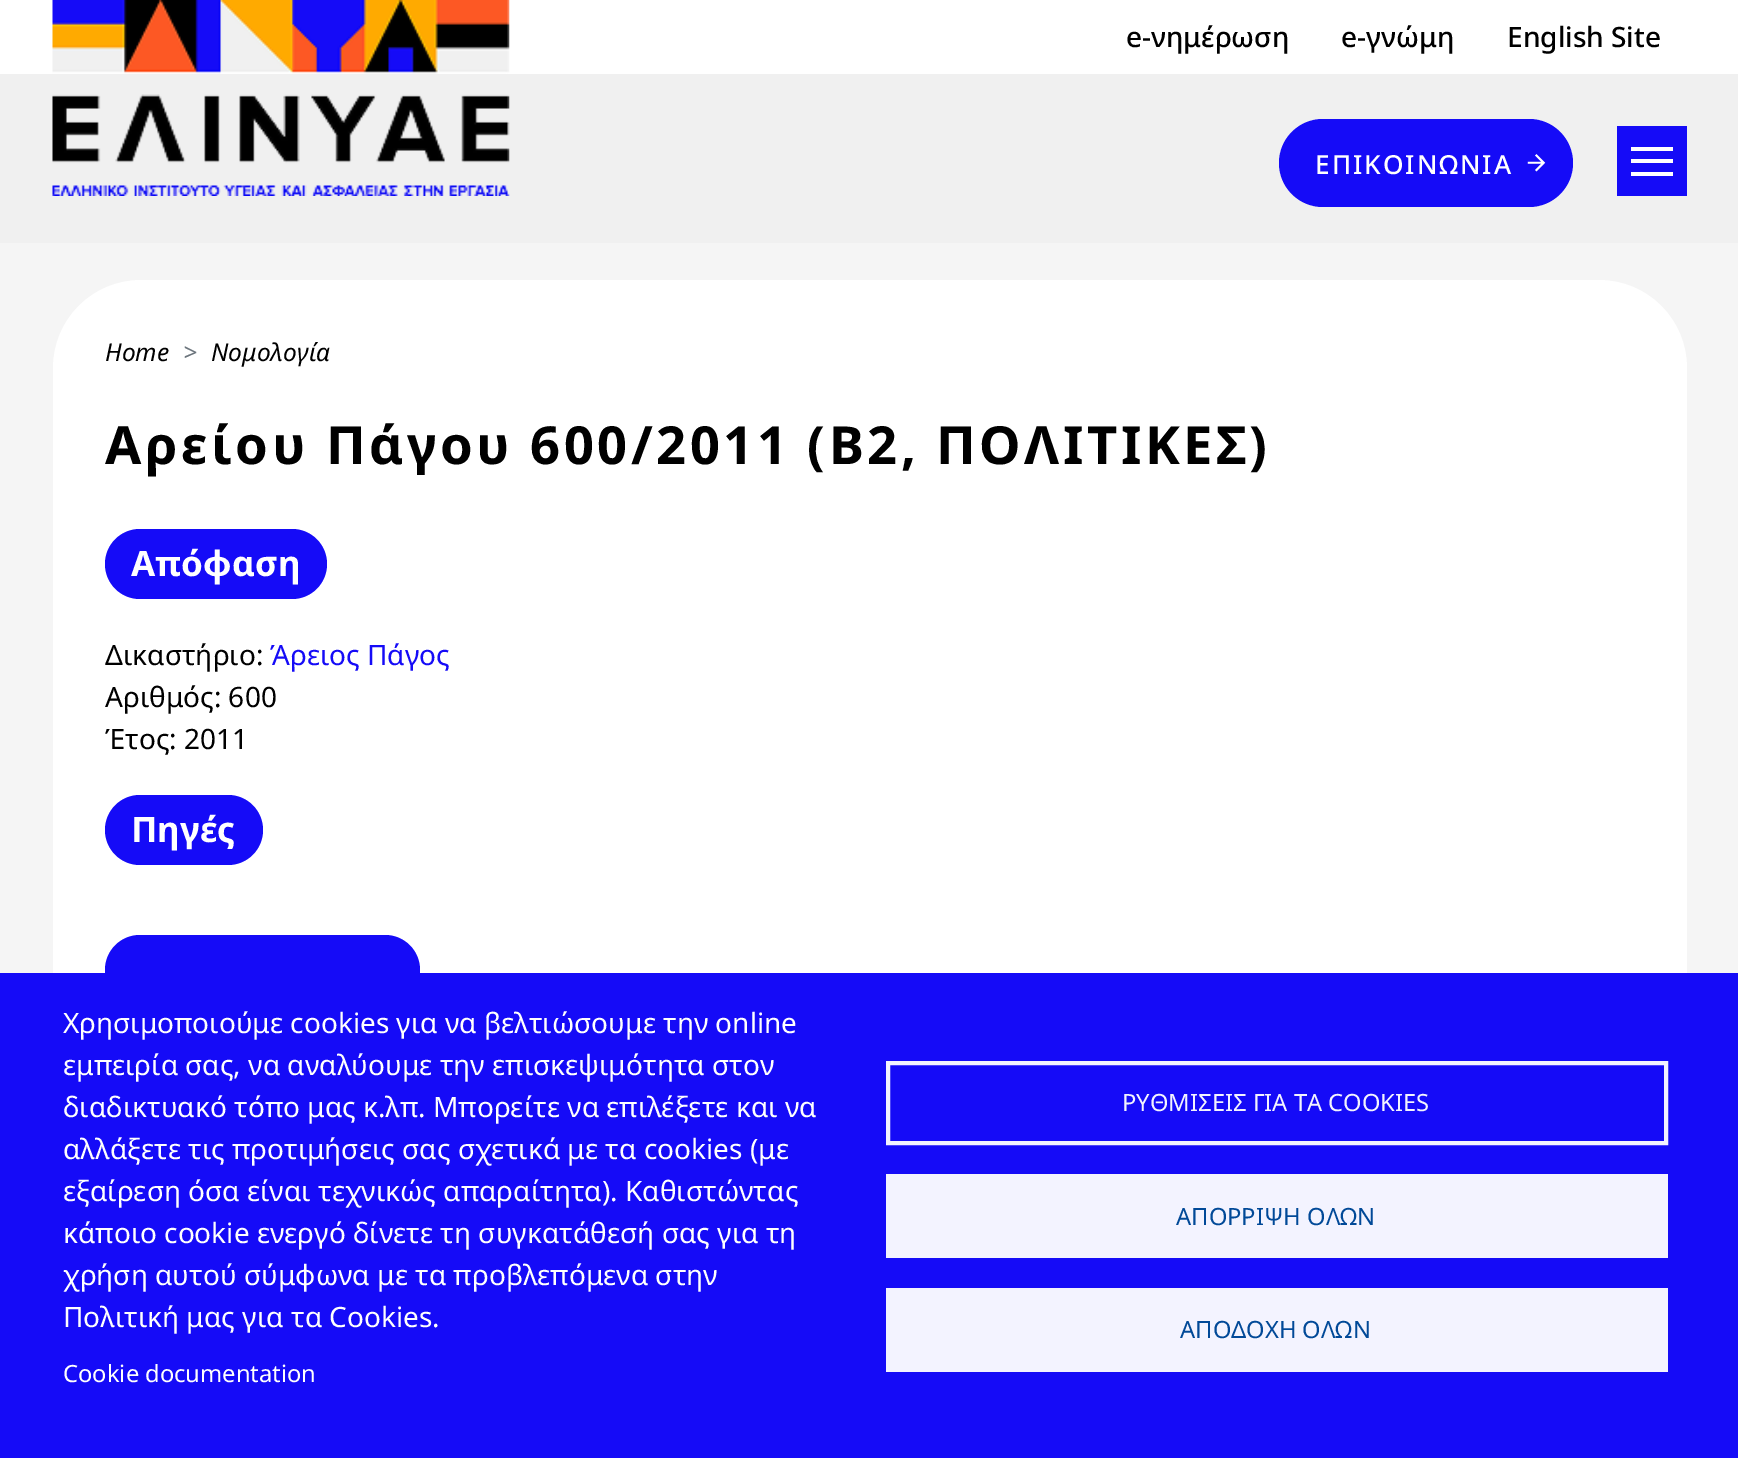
%!PS-Adobe-3.0
%%BoundingBox: 0 0 1738 1458
%%LanguageLevel: 3
%%Pages: 1
%%EndComments
%%BeginProlog
/m { moveto } bind def
/f { fill } bind def
/w { setlinewidth } bind def
/fn { [ exch dup neg 0 0 3 -1 roll 0 0 ] selectfont } def
/tx { moveto show } def
/bx { rectfill } def
/rr { 5 dict begin { /r /h /w /y /x } { exch def } forall
  x r add y moveto x w add y 2 copy h add r arct x w add y h add x 1 index r arct
  x y h add x y r arct x y 2 copy exch w add exch r arct closepath end } def
/im { 5 dict begin { /h /w /y /x /name } { exch def } forall
  gsave x y translate w h scale
  w h 8 [w 0 0 h 0 0] name (r) file false 3 colorimage grestore end } def
%%EndProlog
%%BeginSetup
<< /PageSize [1738 1458] >> setpagedevice
%%EndSetup
%%Page: 1 1
0 1458 translate 1 -1 scale
4 setmiterlimit
0.961 setgray
0 0 1738 1458 bx
0.941 setgray
0 74 1738 169 bx
1 setgray
0 0 1738 74 bx
/NotoSans-Medium 28 fn
0 setgray
(e-νημέρωση) 1126 47 tx
(e-γνώμη) 1341 47 tx
(English Site) 1507 47 tx
(image0.raw) 52 0 458 196 im
0.082 0.043 0.969 setrgbcolor
1279 119 294 88 44 rr f
/NotoSans-Medium 26.25 fn
1 setgray
1315 174 m 2 0 (ΕΠΙΚΟΙΝΩΝΙΑ) ashow
(image1.raw) 1527 154 19 18 im
0.082 0.043 0.969 setrgbcolor
1617 126 70 70 bx
1 setgray
1631 147 42 4 bx
1631 159 42 4 bx
1631 172 42 4 bx
53 280 1634 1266 88 rr f
/NotoSans-Italic 24.5 fn
0 setgray
(Home) 105 361 tx
0.424 0.459 0.49 setrgbcolor
(>) 183 361 tx
0 setgray
(Νομολογία) 211 361 tx
/NotoSans-Bold 52.5 fn
105 464 m 3.5 0 (Αρείου Πάγου 600/2011 \(Β2, ΠΟΛΙΤΙΚΕΣ\)) ashow
0.082 0.043 0.969 setrgbcolor
105 529 222 70 35 rr f
/NotoSans-Bold 35 fn
1 setgray
(Απόφαση) 131 576 tx
/NotoSans-Regular 28 fn
0 setgray
(Δικαστήριο:) 105 665 tx
0.082 0.043 0.969 setrgbcolor
(Άρειος Πάγος) 270 665 tx
0 setgray
(Αριθμός: 600) 105 707 tx
(Έτος: 2011) 105 749 tx
0.082 0.043 0.969 setrgbcolor
105 795 158 70 35 rr f
/NotoSans-Bold 35 fn
1 setgray
(Πηγές) 131 842 tx
0.082 0.043 0.969 setrgbcolor
105 935 315 70 35 rr f
0 973 1738 485 bx
/NotoSans-Regular 28 fn
1 setgray
(Χρησιμοποιούμε cookies για να βελτιώσουμε την online) 63 1033 tx
(εμπειρία σας, να αναλύουμε την επισκεψιμότητα στον) 63 1075 tx
(διαδικτυακό τόπο μας κ.λπ. Μπορείτε να επιλέξετε και να) 63 1117 tx
(αλλάξετε τις προτιμήσεις σας σχετικά με τα cookies \(με) 63 1159 tx
(εξαίρεση όσα είναι τεχνικώς απαραίτητα\). Καθιστώντας) 63 1201 tx
(κάποιο cookie ενεργό δίνετε τη συγκατάθεσή σας για τη) 63 1243 tx
(χρήση αυτού σύμφωνα με τα προβλεπόμενα στην) 63 1285 tx
(Πολιτική μας για τα Cookies.) 63 1327 tx
/NotoSans-Regular 23.75 fn
(Cookie documentation) 63 1382 tx
0.953 0.953 1 setrgbcolor
4 w
888 1063 778 80 rectstroke
(ΡΥΘΜΙΣΕΙΣ ΓΙΑ ΤΑ COOKIES) 1122 1111 tx
886 1174 782 84 bx
0.004 0.286 0.596 setrgbcolor
(ΑΠΟΡΡΙΨΗ ΟΛΩΝ) 1176 1225 tx
0.953 0.953 1 setrgbcolor
886 1288 782 84 bx
0.004 0.286 0.596 setrgbcolor
(ΑΠΟΔΟΧΗ ΟΛΩΝ) 1180 1338 tx
showpage
%%EOF
